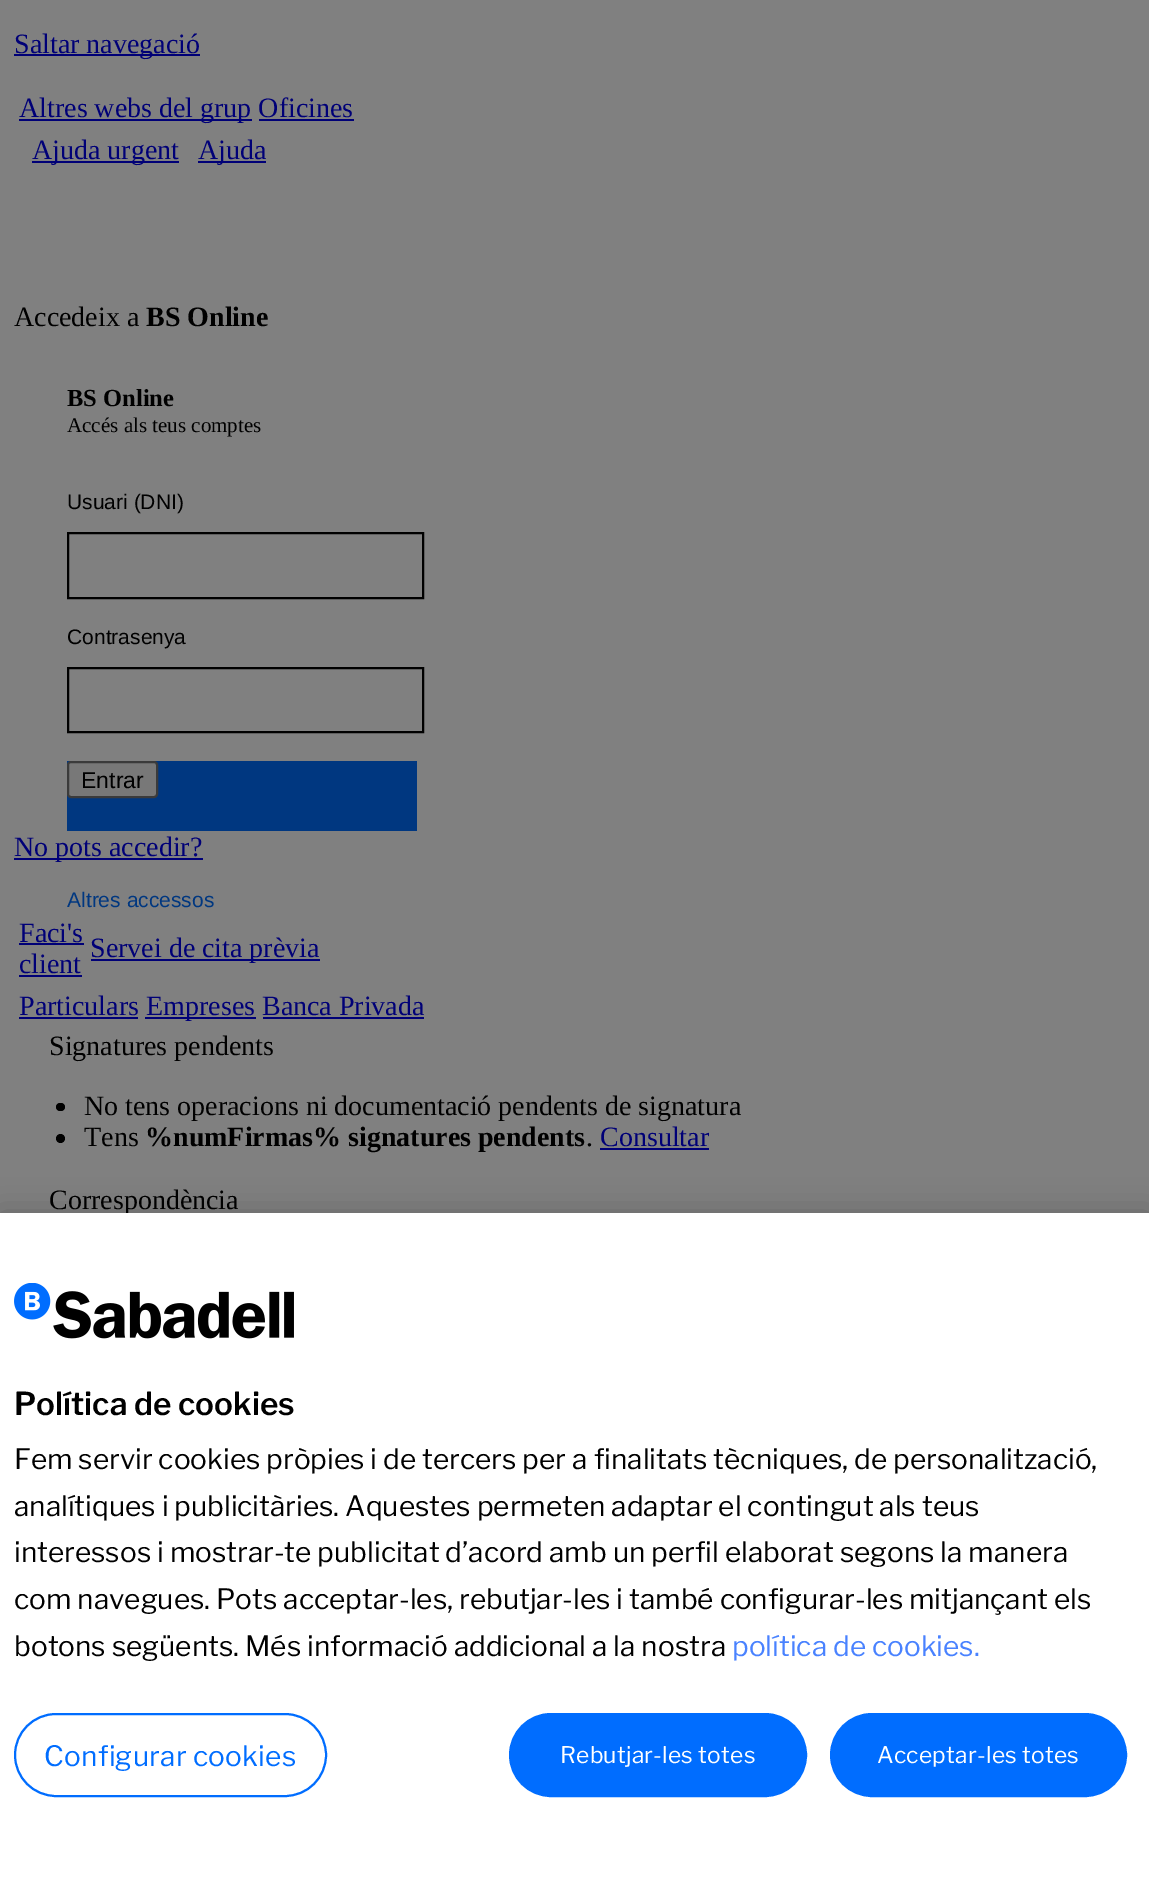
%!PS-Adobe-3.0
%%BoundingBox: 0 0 1149 1881
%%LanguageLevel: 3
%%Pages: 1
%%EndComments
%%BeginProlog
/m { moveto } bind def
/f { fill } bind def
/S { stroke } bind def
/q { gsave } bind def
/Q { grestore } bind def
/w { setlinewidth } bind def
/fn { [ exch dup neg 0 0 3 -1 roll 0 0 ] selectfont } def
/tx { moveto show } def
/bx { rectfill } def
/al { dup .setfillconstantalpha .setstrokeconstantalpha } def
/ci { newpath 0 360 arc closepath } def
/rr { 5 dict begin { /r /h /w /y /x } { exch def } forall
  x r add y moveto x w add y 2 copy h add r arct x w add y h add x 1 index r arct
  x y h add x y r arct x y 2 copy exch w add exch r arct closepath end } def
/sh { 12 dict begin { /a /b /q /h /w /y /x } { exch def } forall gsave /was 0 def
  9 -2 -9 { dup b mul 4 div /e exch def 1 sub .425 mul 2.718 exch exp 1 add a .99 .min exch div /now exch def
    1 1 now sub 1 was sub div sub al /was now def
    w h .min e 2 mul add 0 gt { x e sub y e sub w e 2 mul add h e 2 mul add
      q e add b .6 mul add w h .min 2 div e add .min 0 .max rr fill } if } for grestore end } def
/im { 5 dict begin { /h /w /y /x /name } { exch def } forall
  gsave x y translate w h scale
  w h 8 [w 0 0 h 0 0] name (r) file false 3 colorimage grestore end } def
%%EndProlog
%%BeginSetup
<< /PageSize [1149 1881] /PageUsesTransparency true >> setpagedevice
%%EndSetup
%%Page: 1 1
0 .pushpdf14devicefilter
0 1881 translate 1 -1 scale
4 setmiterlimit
0.502 setgray
0 0 1149 1881 bx
0 0 0.467 setrgbcolor
14 54 186 2 bx
/LiberationSerif-Regular 28 fn
(Saltar navegació) 14 53 tx
19 119 233 2 bx
(Altres webs del grup Oficines) 19 117 tx
259 119 95 2 bx
32 161 147 2 bx
(Ajuda urgent) 32 159 tx
198 161 68 2 bx
(Ajuda) 198 159 tx
0 setgray
(Accedeix a) 14 326 tx
/LiberationSerif-Bold 28 fn
(BS Online) 146 326 tx
/LiberationSerif-Bold 24.5 fn
(BS Online) 67 406 tx
/LiberationSerif-Regular 21 fn
(Accés als teus comptes) 67 432 tx
/LiberationSans-Regular 21 fn
(Usuari \(DNI\)) 67 509 tx
2 w
68 533 355 65 rectstroke
(Contrasenya) 67 644 tx
68 668 355 64 rectstroke
0 0.216 0.502 setrgbcolor
67 761 350 70 bx
0.471 setgray
68 762 89 35 3 rr q f Q
0.231 setgray
S
/LiberationSans-Regular 23 fn
0 setgray
(Entrar) 81 788 tx
0 0 0.467 setrgbcolor
14 858 189 2 bx
/LiberationSerif-Regular 28 fn
(No pots accedir?) 14 856 tx
/LiberationSans-Regular 21 fn
0 0.216 0.502 setrgbcolor
(Altres accessos) 67 907 tx
/LiberationSerif-Regular 28 fn
0 0 0.467 setrgbcolor
(Faci's) 19 942 tx
19 943 65 2 bx
(client) 19 973 tx
19 975 63 2 bx
91 959 229 2 bx
(Servei de cita prèvia) 90 957 tx
(Particulars) 19 1015 tx
19 1017 119 2 bx
145 1017 111 2 bx
(Empreses Banca Privada) 146 1015 tx
263 1017 161 2 bx
0 setgray
(Signatures pendents) 49 1055 tx
56 1103 9 8 4 rr f
(No tens operacions ni documentació pendents de signatura) 84 1115 tx
60.5 1138.5 4.5 ci f
(Tens) 84 1146 tx
/LiberationSerif-Bold 28 fn
(%numFirmas% signatures pendents) 145 1146 tx
/LiberationSerif-Regular 28 fn
0 0 0.467 setrgbcolor
(Consultar) 600 1146 tx
600 1148 109 2 bx
0 setgray
(.) 586 1146 tx
(Correspondència) 49 1209 tx
0 1213 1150 668 0 16 0.2 sh
1 setgray
0 1213 1149 668 bx
(image0.raw) 14 1283 280 56 im
/LibreFranklin-SemiBold 31.5 fn
0 setgray
(Política de cookies) 14 1415 tx
/LibreFranklin-Regular 28 fn
(Fem servir cookies pròpies i de tercers per a finalitats tècniques, de personalització,) 14 1469 tx
(analítiques i publicitàries. Aquestes permeten adaptar el contingut als teus) 14 1516 tx
(interessos i mostrar-te publicitat d’acord amb un perfil elaborat segons la manera) 14 1562 tx
(com navegues. Pots acceptar-les, rebutjar-les i també configurar-les mitjançant els) 14 1609 tx
(botons següents. Més informació addicional a la nostra) 14 1656 tx
0.286 0.51 1 setrgbcolor
(política de cookies.) 732 1656 tx
0 0.427 1 setrgbcolor
15 1714 311 82 41 rr S
44 1766 m 0.25 0 (Configurar cookies) ashow
510 1714 296 82 41 rr q f Q
S
/LibreFranklin-Regular 22.75 fn
1 setgray
560 1763 m 0.25 0 (Rebutjar-les totes) ashow
0 0.427 1 setrgbcolor
831 1714 295 82 41 rr q f Q
S
1 setgray
877 1763 m 0.25 0 (Acceptar-les totes) ashow
.poppdf14devicefilter showpage
%%EOF
